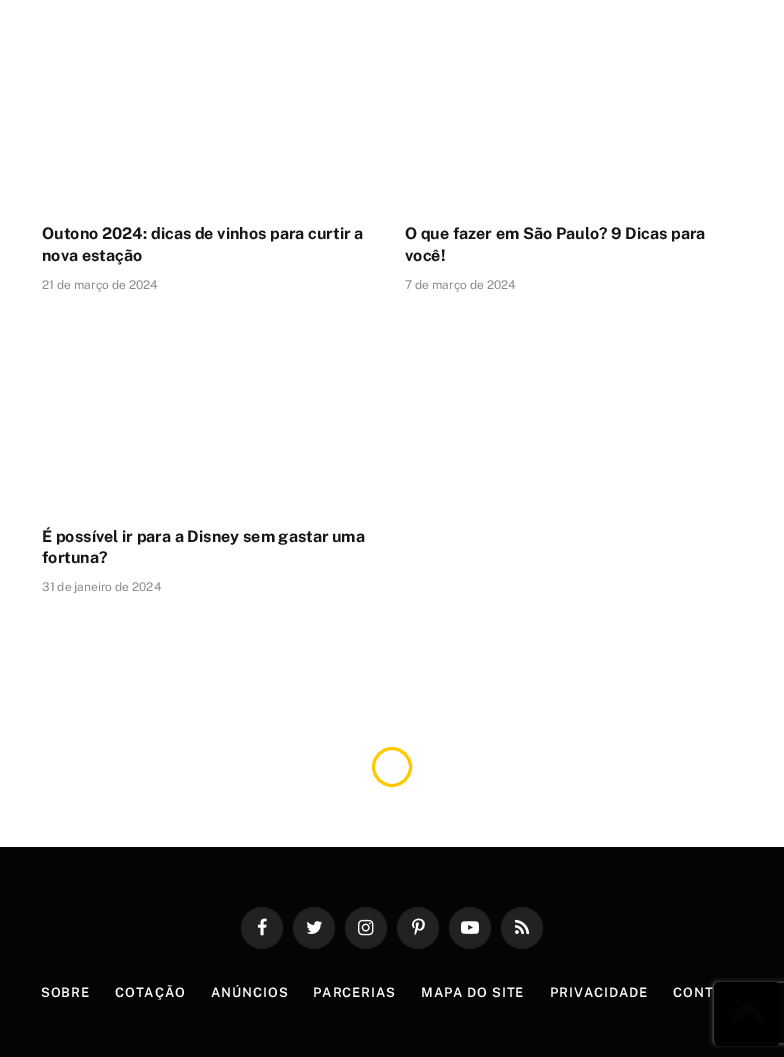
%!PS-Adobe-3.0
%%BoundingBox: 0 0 784 1057
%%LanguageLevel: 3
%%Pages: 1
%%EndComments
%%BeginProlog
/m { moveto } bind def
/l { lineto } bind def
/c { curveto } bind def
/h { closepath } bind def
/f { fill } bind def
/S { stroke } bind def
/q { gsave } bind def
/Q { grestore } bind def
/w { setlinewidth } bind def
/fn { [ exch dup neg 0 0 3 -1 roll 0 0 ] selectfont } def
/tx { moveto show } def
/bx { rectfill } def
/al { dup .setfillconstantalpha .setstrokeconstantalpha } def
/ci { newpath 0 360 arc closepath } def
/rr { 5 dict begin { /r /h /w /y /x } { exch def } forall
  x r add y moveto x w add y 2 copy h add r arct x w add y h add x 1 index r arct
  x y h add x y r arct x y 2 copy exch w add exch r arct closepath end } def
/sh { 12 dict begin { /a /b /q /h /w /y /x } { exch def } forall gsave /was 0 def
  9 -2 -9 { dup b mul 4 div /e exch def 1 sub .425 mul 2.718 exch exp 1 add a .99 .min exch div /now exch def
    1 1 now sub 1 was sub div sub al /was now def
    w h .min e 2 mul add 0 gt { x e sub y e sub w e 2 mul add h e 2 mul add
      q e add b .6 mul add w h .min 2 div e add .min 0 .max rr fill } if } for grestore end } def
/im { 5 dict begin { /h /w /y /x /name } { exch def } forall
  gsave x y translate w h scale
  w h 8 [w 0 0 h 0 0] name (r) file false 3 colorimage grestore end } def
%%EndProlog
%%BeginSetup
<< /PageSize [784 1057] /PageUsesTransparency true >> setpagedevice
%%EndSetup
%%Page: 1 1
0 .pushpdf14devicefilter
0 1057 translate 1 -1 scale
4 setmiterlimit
1 setgray
0 0 784 1057 bx
/PublicSans-Bold 16 fn
0.086 setgray
(Outono 2024: dicas de vinhos para curtir a) 42 239 tx
(nova estação) 42 261 tx
/PublicSans-Regular 12 fn
0.541 setgray
(21 de março de 2024) 42 289 tx
/PublicSans-Bold 16 fn
0.086 setgray
(O que fazer em São Paulo? 9 Dicas para) 405 239 tx
(você!) 405 261 tx
/PublicSans-Regular 12 fn
0.541 setgray
(7 de março de 2024) 405 289 tx
/PublicSans-Bold 16 fn
0.086 setgray
(É possível ir para a Disney sem gastar uma) 42 542 tx
(fortuna?) 42 563 tx
/PublicSans-Regular 12 fn
0.541 setgray
(31 de janeiro de 2024) 42 591 tx
1 0.788 0 setrgbcolor
3 w
392 767 18.5 ci S
0.016 setgray
0 847 784 210 bx
0.133 setgray
262 928 21 ci f
0.09 al
0 setgray
1 w
262 928 20.5 ci S
1 al
(image0.raw) 257 918 10 18 im
0.133 setgray
314 928 21 ci f
0.09 al
0 setgray
314 928 20.5 ci S
1 al
(image1.raw) 306 921 17 13 im
0.133 setgray
366 928 21 ci f
0.09 al
0 setgray
366 928 20.5 ci S
1 al
(image2.raw) 358 919 16 17 im
0.133 setgray
418 928 21 ci f
0.09 al
0 setgray
418 928 20.5 ci S
1 al
(image3.raw) 412 918 13 18 im
0.133 setgray
470 928 21 ci f
0.09 al
0 setgray
470 928 20.5 ci S
1 al
(image4.raw) 461 921 18 13 im
0.133 setgray
522 928 21 ci f
0.09 al
0 setgray
522 928 20.5 ci S
1 al
(image5.raw) 515 919 15 15 im
/PublicSans-SemiBold 13 fn
1 setgray
41 997 m 0.9 0 (SOBRE) ashow
115 997 m 0.9 0 (COTAÇÃO) ashow
211 997 m 0.9 0 (ANÚNCIOS) ashow
313 997 m 0.9 0 (PARCERIAS) ashow
421 997 m 0.9 0 (MAPA DO SITE) ashow
550 997 m 0.9 0 (PRIVACIDADE) ashow
673 997 m 0.9 0 (CONT) ashow
q
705 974 m 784 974 l 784 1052 l 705 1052 l h 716 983 m 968 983 l 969 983 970 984 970 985 c 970 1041 l 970 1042 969 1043 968 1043 c 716 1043 l 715 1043 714 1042 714 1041 c 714 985 l 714 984 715 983 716 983 c h eoclip newpath
0.502 setgray
714 983 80 60 2 2.5 1 sh
Q
(image6.raw) 715 982 64 64 im
.poppdf14devicefilter showpage
%%EOF
